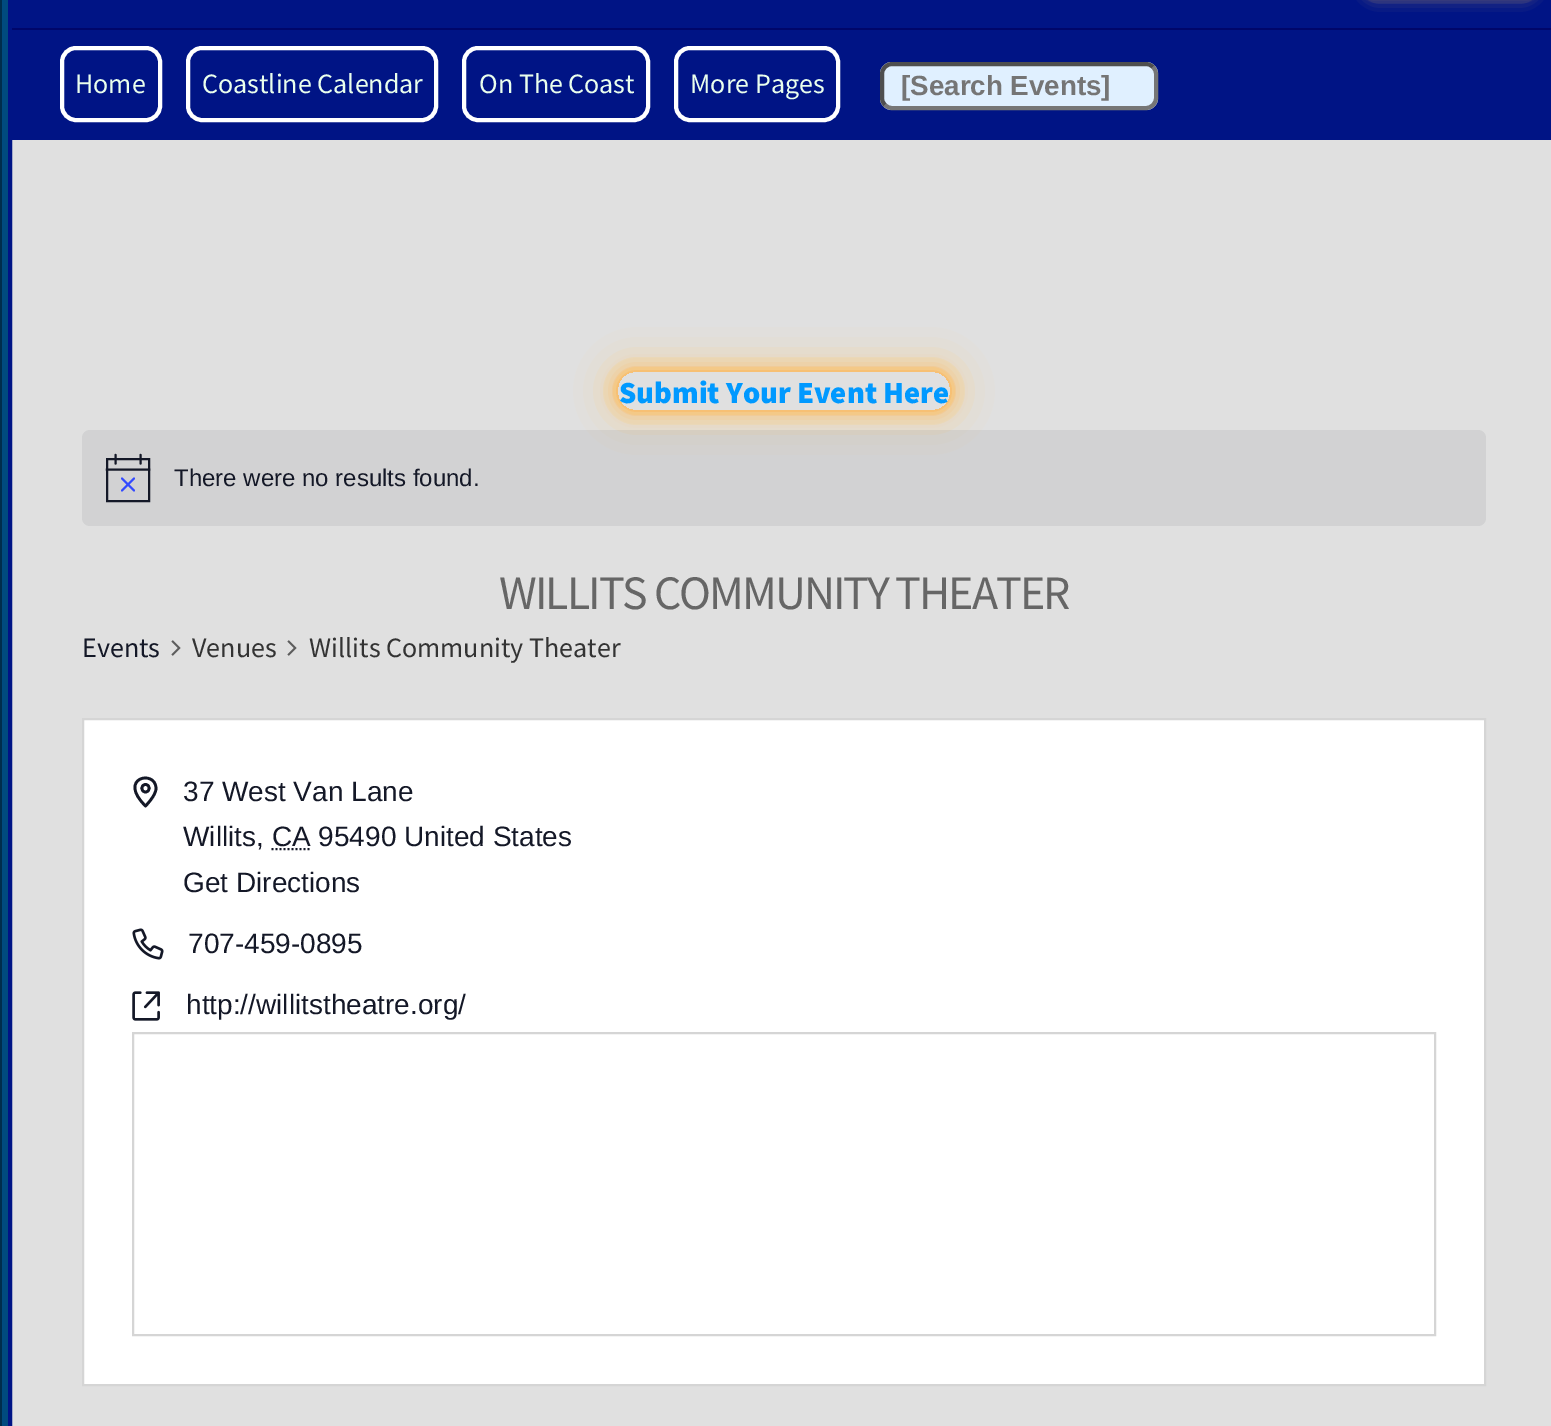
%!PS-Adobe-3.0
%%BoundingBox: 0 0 1551 1426
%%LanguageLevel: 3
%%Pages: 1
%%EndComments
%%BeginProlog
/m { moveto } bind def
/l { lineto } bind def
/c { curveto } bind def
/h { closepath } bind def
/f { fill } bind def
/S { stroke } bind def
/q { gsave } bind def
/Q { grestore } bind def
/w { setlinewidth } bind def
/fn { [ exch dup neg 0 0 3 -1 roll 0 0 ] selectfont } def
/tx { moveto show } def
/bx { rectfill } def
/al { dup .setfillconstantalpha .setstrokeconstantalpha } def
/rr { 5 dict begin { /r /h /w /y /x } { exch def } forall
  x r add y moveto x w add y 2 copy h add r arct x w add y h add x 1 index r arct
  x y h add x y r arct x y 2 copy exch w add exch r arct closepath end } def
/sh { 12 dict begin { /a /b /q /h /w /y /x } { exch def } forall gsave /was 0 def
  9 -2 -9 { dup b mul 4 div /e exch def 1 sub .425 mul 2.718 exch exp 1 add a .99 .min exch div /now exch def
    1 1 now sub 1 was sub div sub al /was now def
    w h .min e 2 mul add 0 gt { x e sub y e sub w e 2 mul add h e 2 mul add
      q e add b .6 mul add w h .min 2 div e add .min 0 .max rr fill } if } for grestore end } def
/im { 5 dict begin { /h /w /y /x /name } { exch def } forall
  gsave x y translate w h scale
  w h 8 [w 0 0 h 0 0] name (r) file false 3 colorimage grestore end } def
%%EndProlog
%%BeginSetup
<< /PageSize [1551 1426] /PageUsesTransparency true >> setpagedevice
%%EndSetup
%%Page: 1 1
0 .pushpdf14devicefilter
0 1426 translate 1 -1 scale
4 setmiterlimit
0 setgray
0 0 1551 1426 bx
0 0.6 1 setrgbcolor
8 -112 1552 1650 40 24 1 sh
0.878 setgray
12 140 1539 1286 bx
0 0.078 0.522 setrgbcolor
4 w
10 -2 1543 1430 rectstroke
12 0 1539 28 bx
1 0.8 0.4 setrgbcolor
1368 -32 164 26 8 8 1 sh
1 0.667 0.267 setrgbcolor
1368 -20 164 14 8 4 1 sh
0 0.078 0.522 setrgbcolor
12 30 1539 110 bx
0 0.024 0.416 setrgbcolor
12 28 1539 2 bx
1 setgray
62 48 98 72 14 rr S
/SourceSansPro-Regular 28 fn
0.918 1 0.929 setrgbcolor
(Home) 75 93 tx
1 setgray
188 48 248 72 14 rr S
0.918 1 0.929 setrgbcolor
(Coastline Calendar) 202 93 tx
1 setgray
464 48 184 72 14 rr S
0.918 1 0.929 setrgbcolor
(On The Coast) 479 93 tx
1 setgray
676 48 162 72 14 rr S
0.918 1 0.929 setrgbcolor
(More Pages) 690 93 tx
0.878 0.941 1 setrgbcolor
880 62 278 48 12 rr f
0.463 setgray
1153 67 m 1155 69 1156 71.5 1156 74 c 1156 98 l 1156 100.5 1155 103 1153 105 c 1151 107 1148.5 108 1146 108 c 892 108 l 889.5 108 887 107 885 105 c S
0.31 setgray
885 105 m 883 103 882 100.5 882 98 c 882 74 l 882 71.5 883 69 885 67 c 887 65 889.5 64 892 64 c 1146 64 l 1148.5 64 1151 65 1153 67 c S
/LiberationSans-Bold 27.75 fn
0.459 setgray
([Search Events]) 901 95 tx
q
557 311 m 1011 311 l 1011 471 l 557 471 l h 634 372 m 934 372 l 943 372 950 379 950 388 c 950 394 l 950 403 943 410 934 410 c 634 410 l 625 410 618 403 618 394 c 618 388 l 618 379 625 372 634 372 c h eoclip newpath
1 0.8 0.4 setrgbcolor
618 372 332 38 16 20 1 sh
Q
q
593 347 m 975 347 l 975 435 l 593 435 l h 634 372 m 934 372 l 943 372 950 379 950 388 c 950 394 l 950 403 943 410 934 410 c 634 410 l 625 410 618 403 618 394 c 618 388 l 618 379 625 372 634 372 c h eoclip newpath
1 0.667 0.267 setrgbcolor
618 372 332 38 16 8 1 sh
Q
/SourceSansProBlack-Black 30.75 fn
0 0.6 1 setrgbcolor
(Submit Your Event Here) 619 403 tx
0.07 al
0.078 0.094 0.153 setrgbcolor
82 430 1404 96 8 rr f
1 al
2.1 w
107 459 m 149 459 l 149 501 l 107 501 l h S
0.2 0.29 1 setrgbcolor
1 setlinecap
122 478.5 m 134 490.5 l 134 478.5 m 122 490.5 l S
0.078 0.094 0.153 setrgbcolor
115.5 455 m 115.5 463.5 l 140.5 455 m 140.5 463.5 l S
2 setlinecap
107 469.5 m 149 469.5 l S
/LiberationSans-Regular 24 fn
(There were no results found.) 174 486 tx
/SourceSansPro-Regular 48 fn
0.4 setgray
499 609 m -2 0 (WILLITS COMMUNITY THEATER) ashow
/SourceSansPro-Regular 28 fn
0.078 0.094 0.153 setrgbcolor
(Events) 82 657 tx
(image0.raw) 171 640 10 16 im
0.2 setgray
(Venues) 192 657 tx
(image0.raw) 287 640 10 16 im
(Willits Community Theater) 309 657 tx
1 setgray
83 719 m 1485 719 l 1485 1385 l 83 1385 l h q f Q
0.835 setgray
2 w
0 setlinecap
S
0.078 0.094 0.153 setrgbcolor
2.7 w
1 setlinecap
1 setlinejoin
156 788.5 m 156 795.5 145.5 806 145.5 806 c 116.5 777.5 156 769 156 788.5 c h 145.5 792 m 150.5 792 150.5 784.5 145.5 784.5 c 140.5 784.5 140.5 792 145.5 792 c h S
/LiberationSans-Regular 28 fn
(37 West Van Lane) 183 801 tx
(Willits, CA 95490 United States) 183 846 tx
2 w
0 setlinecap
0 setlinejoin
[2 2] 0 setdash
271.5 849 m 310.5 849 l S
(Get Directions) 183 892 tx
(image1.raw) 132 928 32 32 im
(707-459-0895) 188 953 tx
(image2.raw) 132 991 28 30 im
(http://willitstheatre.org/) 186 1014 tx
0.835 setgray
[] 0 setdash
133 1033 1302 302 rectstroke
.poppdf14devicefilter showpage
%%EOF
